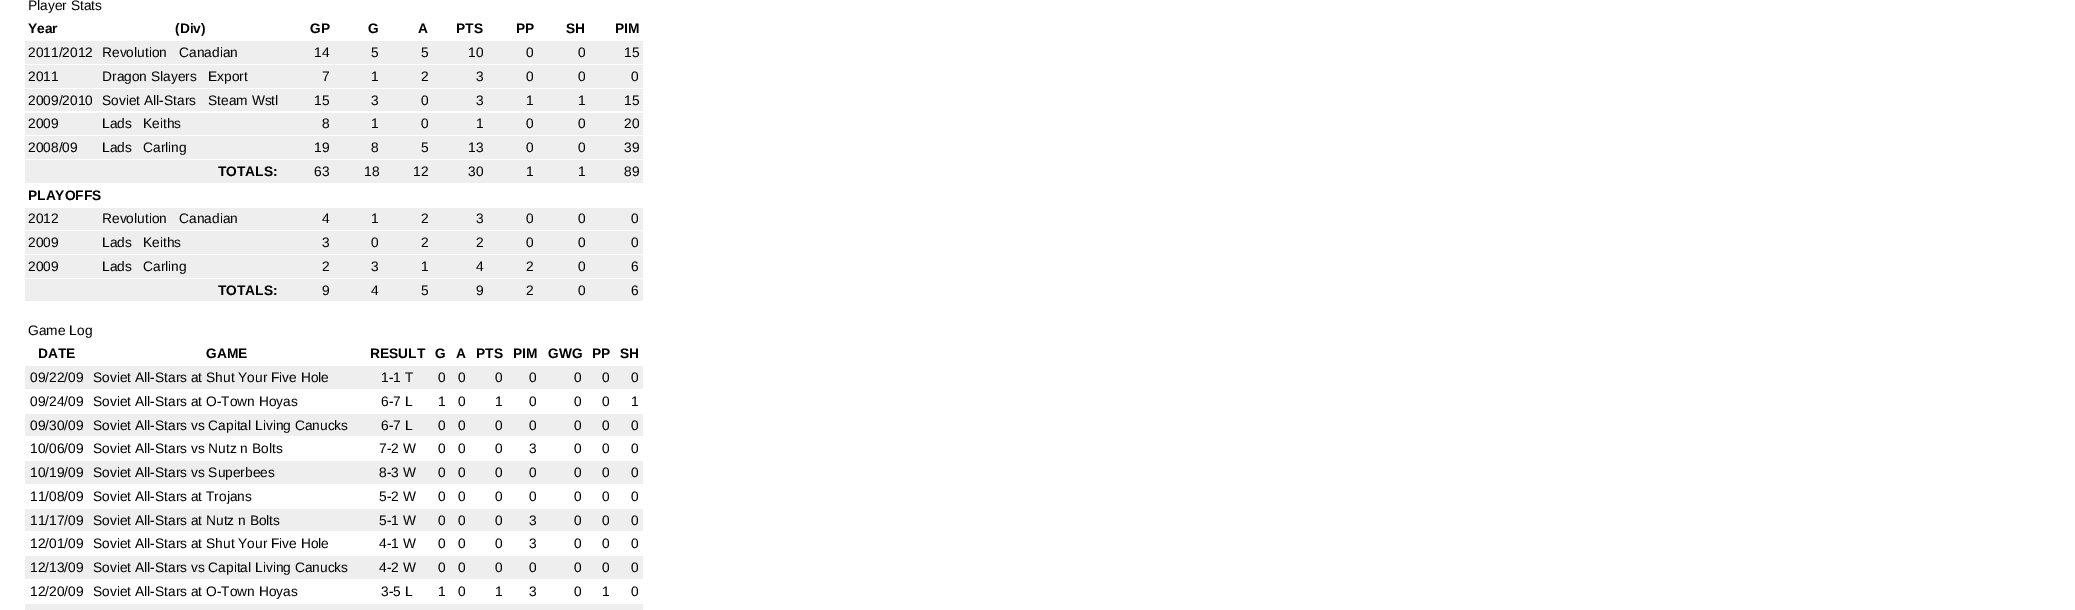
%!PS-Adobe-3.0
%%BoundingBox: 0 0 2075 610
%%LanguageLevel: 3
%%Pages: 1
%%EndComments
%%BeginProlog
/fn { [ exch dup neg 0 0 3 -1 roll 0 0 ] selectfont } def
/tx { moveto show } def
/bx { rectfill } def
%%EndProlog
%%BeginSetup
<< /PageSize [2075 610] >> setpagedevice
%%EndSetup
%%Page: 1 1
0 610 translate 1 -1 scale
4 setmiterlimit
1 setgray
0 0 2075 610 bx
/LiberationSans-Regular 13.75 fn
0 setgray
(Player Stats) 28 10 tx
/LiberationSans-Bold 13.75 fn
(Year) 28 33 tx
(\(Div\)) 175 33 tx
(GP) 310 33 tx
(G) 368 33 tx
(A) 418 33 tx
(PTS) 456 33 tx
(PP) 516 33 tx
(SH) 566 33 tx
(PIM) 615 33 tx
0.933 setgray
25 41 618 23 bx
/LiberationSans-Regular 13.75 fn
0 setgray
(2011/2012) 28 57 tx
(Revolution) 102 57 tx
(Canadian) 179 57 tx
(14) 314 57 tx
(5) 371 57 tx
(5) 421 57 tx
(10) 468 57 tx
(0) 526 57 tx
(0) 578 57 tx
(15) 624 57 tx
0.933 setgray
25 65 618 23 bx
0 setgray
(2011) 28 81 tx
(Dragon Slayers) 102 81 tx
(Export) 208 81 tx
(7) 322 81 tx
(1) 371 81 tx
(2) 421 81 tx
(3) 476 81 tx
(0) 526 81 tx
(0) 578 81 tx
(0) 631 81 tx
0.933 setgray
25 89 618 22 bx
0 setgray
(2009/2010) 28 105 tx
(Soviet All-Stars) 102 105 tx
(Steam Wstl) 208 105 tx
(15) 314 105 tx
(3) 371 105 tx
(0) 421 105 tx
(3) 476 105 tx
(1) 526 105 tx
(1) 578 105 tx
(15) 624 105 tx
0.933 setgray
25 113 618 22 bx
0 setgray
(2009) 28 128 tx
(Lads) 102 128 tx
(Keiths) 143 128 tx
(8) 322 128 tx
(1) 371 128 tx
(0) 421 128 tx
(1) 476 128 tx
(0) 526 128 tx
(0) 578 128 tx
(20) 624 128 tx
0.933 setgray
25 136 618 23 bx
0 setgray
(2008/09) 28 152 tx
(Lads) 102 152 tx
(Carling) 143 152 tx
(19) 314 152 tx
(8) 371 152 tx
(5) 421 152 tx
(13) 468 152 tx
(0) 526 152 tx
(0) 578 152 tx
(39) 624 152 tx
0.933 setgray
25 160 618 23 bx
/LiberationSans-Bold 13.75 fn
0 setgray
(TOTALS:) 218 176 tx
/LiberationSans-Regular 13.75 fn
(63) 314 176 tx
(18) 364 176 tx
(12) 413 176 tx
(30) 468 176 tx
(1) 526 176 tx
(1) 578 176 tx
(89) 624 176 tx
/LiberationSans-Bold 13.75 fn
(PLAYOFFS) 28 200 tx
0.933 setgray
25 208 618 22 bx
/LiberationSans-Regular 13.75 fn
0 setgray
(2012) 28 223 tx
(Revolution) 102 223 tx
(Canadian) 179 223 tx
(4) 322 223 tx
(1) 371 223 tx
(2) 421 223 tx
(3) 476 223 tx
(0) 526 223 tx
(0) 578 223 tx
(0) 631 223 tx
0.933 setgray
25 231 618 23 bx
0 setgray
(2009) 28 247 tx
(Lads) 102 247 tx
(Keiths) 143 247 tx
(3) 322 247 tx
(0) 371 247 tx
(2) 421 247 tx
(2) 476 247 tx
(0) 526 247 tx
(0) 578 247 tx
(0) 631 247 tx
0.933 setgray
25 255 618 23 bx
0 setgray
(2009) 28 271 tx
(Lads) 102 271 tx
(Carling) 143 271 tx
(2) 322 271 tx
(3) 371 271 tx
(1) 421 271 tx
(4) 476 271 tx
(2) 526 271 tx
(0) 578 271 tx
(6) 631 271 tx
0.933 setgray
25 279 618 22 bx
/LiberationSans-Bold 13.75 fn
0 setgray
(TOTALS:) 218 295 tx
/LiberationSans-Regular 13.75 fn
(9) 322 295 tx
(4) 371 295 tx
(5) 421 295 tx
(9) 476 295 tx
(2) 526 295 tx
(0) 578 295 tx
(6) 631 295 tx
(Game Log) 28 335 tx
/LiberationSans-Bold 13.75 fn
(DATE) 38 358 tx
(GAME) 206 358 tx
(RESULT) 370 358 tx
(G) 435 358 tx
(A) 456 358 tx
(PTS) 476 358 tx
(PIM) 513 358 tx
(GWG) 548 358 tx
(PP) 592 358 tx
(SH) 620 358 tx
0.933 setgray
25 366 618 23 bx
/LiberationSans-Regular 13.75 fn
0 setgray
(09/22/09) 30 382 tx
(Soviet All-Stars at Shut Your Five Hole) 93 382 tx
(1-1 T) 381 382 tx
(0) 438 382 tx
(0) 458 382 tx
(0) 495 382 tx
(0) 529 382 tx
(0) 574 382 tx
(0) 602 382 tx
(0) 631 382 tx
(09/24/09) 30 406 tx
(Soviet All-Stars at O-Town Hoyas) 93 406 tx
(6-7 L) 381 406 tx
(1) 438 406 tx
(0) 458 406 tx
(1) 495 406 tx
(0) 529 406 tx
(0) 574 406 tx
(0) 602 406 tx
(1) 631 406 tx
0.933 setgray
25 414 618 22 bx
0 setgray
(09/30/09) 30 430 tx
(Soviet All-Stars vs Capital Living Canucks) 93 430 tx
(6-7 L) 381 430 tx
(0) 438 430 tx
(0) 458 430 tx
(0) 495 430 tx
(0) 529 430 tx
(0) 574 430 tx
(0) 602 430 tx
(0) 631 430 tx
(10/06/09) 30 453 tx
(Soviet All-Stars vs Nutz n Bolts) 93 453 tx
(7-2 W) 379 453 tx
(0) 438 453 tx
(0) 458 453 tx
(0) 495 453 tx
(3) 529 453 tx
(0) 574 453 tx
(0) 602 453 tx
(0) 631 453 tx
0.933 setgray
25 461 618 23 bx
0 setgray
(10/19/09) 30 477 tx
(Soviet All-Stars vs Superbees) 93 477 tx
(8-3 W) 379 477 tx
(0) 438 477 tx
(0) 458 477 tx
(0) 495 477 tx
(0) 529 477 tx
(0) 574 477 tx
(0) 602 477 tx
(0) 631 477 tx
(11/08/09) 30 501 tx
(Soviet All-Stars at Trojans) 93 501 tx
(5-2 W) 379 501 tx
(0) 438 501 tx
(0) 458 501 tx
(0) 495 501 tx
(0) 529 501 tx
(0) 574 501 tx
(0) 602 501 tx
(0) 631 501 tx
0.933 setgray
25 509 618 22 bx
0 setgray
(11/17/09) 30 525 tx
(Soviet All-Stars at Nutz n Bolts) 93 525 tx
(5-1 W) 379 525 tx
(0) 438 525 tx
(0) 458 525 tx
(0) 495 525 tx
(3) 529 525 tx
(0) 574 525 tx
(0) 602 525 tx
(0) 631 525 tx
(12/01/09) 30 548 tx
(Soviet All-Stars at Shut Your Five Hole) 93 548 tx
(4-1 W) 379 548 tx
(0) 438 548 tx
(0) 458 548 tx
(0) 495 548 tx
(3) 529 548 tx
(0) 574 548 tx
(0) 602 548 tx
(0) 631 548 tx
0.933 setgray
25 556 618 23 bx
0 setgray
(12/13/09) 30 572 tx
(Soviet All-Stars vs Capital Living Canucks) 93 572 tx
(4-2 W) 379 572 tx
(0) 438 572 tx
(0) 458 572 tx
(0) 495 572 tx
(0) 529 572 tx
(0) 574 572 tx
(0) 602 572 tx
(0) 631 572 tx
(12/20/09) 30 596 tx
(Soviet All-Stars at O-Town Hoyas) 93 596 tx
(3-5 L) 381 596 tx
(1) 438 596 tx
(0) 458 596 tx
(1) 495 596 tx
(3) 529 596 tx
(0) 574 596 tx
(1) 602 596 tx
(0) 631 596 tx
0.933 setgray
25 604 618 6 bx
showpage
%%EOF
